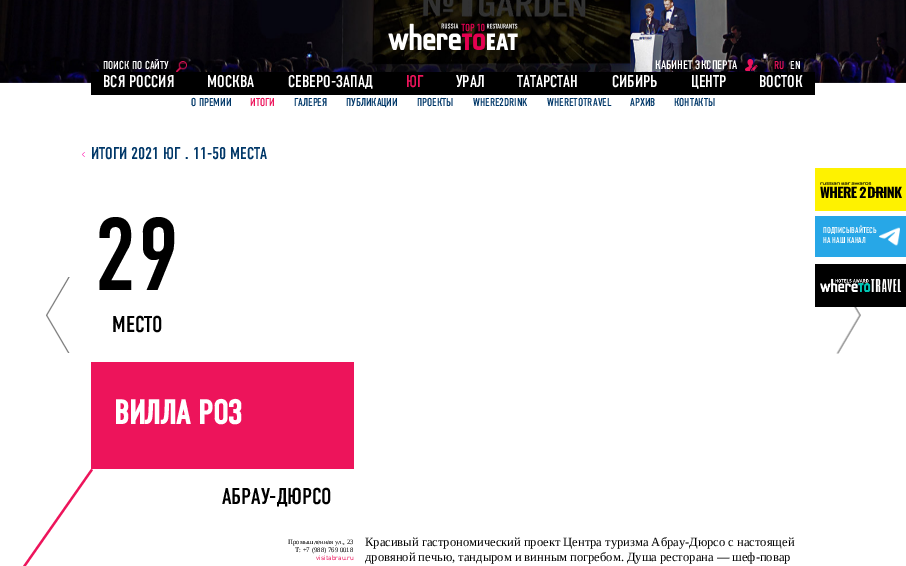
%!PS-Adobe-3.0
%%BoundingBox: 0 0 906 566
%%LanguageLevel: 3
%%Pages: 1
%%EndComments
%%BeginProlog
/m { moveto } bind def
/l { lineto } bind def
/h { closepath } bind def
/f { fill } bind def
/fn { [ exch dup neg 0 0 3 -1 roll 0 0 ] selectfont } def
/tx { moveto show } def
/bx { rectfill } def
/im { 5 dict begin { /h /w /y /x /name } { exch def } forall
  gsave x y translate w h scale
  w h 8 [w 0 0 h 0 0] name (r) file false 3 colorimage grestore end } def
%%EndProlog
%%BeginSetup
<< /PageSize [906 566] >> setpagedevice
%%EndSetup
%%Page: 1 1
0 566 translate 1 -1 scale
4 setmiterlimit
1 setgray
0 0 906 566 bx
(image0.raw) 0 0 906 83 im
(image1.raw) 388 23 130 27 im
/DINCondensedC-Regular 11.5 fn
(ПОИСК ПО САЙТУ) 103 69 tx
(image2.raw) 176 61 11 11 im
/DINCondensedC-Regular 12.55 fn
(КАБИНЕТ ЭКСПЕРТА) 655 69 tx
(image3.raw) 745 59 13 12 im
/DINCondensedC-Regular 11.5 fn
0.929 0.078 0.357 setrgbcolor
(RU) 774 69 tx
1 setgray
(EN) 790 69 tx
0 setgray
91 72 724 23 bx
/DINCondensedC-Regular 17 fn
1 setgray
(ВСЯ РОССИЯ) 103 87 tx
(МОСКВА) 207 87 tx
(СЕВЕРО-ЗАПАД) 288 87 tx
0.929 0.078 0.357 setrgbcolor
(ЮГ) 406 87 tx
1 setgray
(УРАЛ) 456 87 tx
(ТАТАРСТАН) 517 87 tx
(СИБИРЬ) 612 87 tx
(ЦЕНТР) 691 87 tx
(ВОСТОК) 759 87 tx
/DINCondensedC-Regular 11.5 fn
0 0.216 0.408 setrgbcolor
(О ПРЕМИИ) 191 106 tx
0.929 0.078 0.357 setrgbcolor
(ИТОГИ) 250 106 tx
0 0.216 0.408 setrgbcolor
(ГАЛЕРЕЯ) 294 106 tx
(ПУБЛИКАЦИИ) 346 106 tx
(ПРОЕКТЫ) 417 106 tx
(WHERE2DRINK) 473 106 tx
(WHERETOTRAVEL) 547 106 tx
(АРХИВ) 630 106 tx
(КОНТАКТЫ) 674 106 tx
(image4.raw) 82 152 3 5 im
/DINCondensedC-Regular 17 fn
(ИТОГИ 2021 ЮГ) 91 159 tx
(. 11-50 МЕСТА) 185 159 tx
0.996 0.949 0 setrgbcolor
815 168 91 43 bx
(image5.raw) 820 182 82 16 im
/DINCondensedC-Regular 103 fn
0 setgray
(29) 94 290 tx
/DINCondensedC-Regular 23 fn
(МЕСТО) 112 332 tx
0.929 0.078 0.357 setrgbcolor
91 362 263 107 bx
/DINCondensedC-Bold 34 fn
1 setgray
(ВИЛЛА РОЗ) 114 424 tx
0.929 0.078 0.357 setrgbcolor
93 470 m -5 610 l -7 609 l 91 469 l h f
/DINCondensedC-Regular 23 fn
0 setgray
(АБРАУ-ДЮРСО) 222 504 tx
/LiberationSerif-Regular 6.75 fn
(Промышленная ул., 23) 288 544 tx
(Т: +7 \(988\) 769 0018) 295 552 tx
/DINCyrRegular-Regular 6.75 fn
0.929 0.078 0.357 setrgbcolor
(visitabrau.ru) 316 560 tx
/LiberationSerif-Regular 12.55 fn
0 setgray
(Красивый гастрономический проект Центра туризма Абрау-Дюрсо с настоящей) 365 546 tx
(дровяной печью, тандыром и винным погребом. Душа ресторана — шеф-повар) 365 561 tx
0.153 0.655 0.906 setrgbcolor
815 216 91 41 bx
(image6.raw) 879 227 21 19 im
/DINCondensedC-Regular 8.5 fn
1 setgray
(ПОДПИСЫВАЙТЕСЬ) 823 233 tx
(НА НАШ КАНАЛ) 823 243 tx
0 setgray
815 264 91 43 bx
(image7.raw) 820 278 81 14 im
(image8.raw) 46 277 24 76 im
(image9.raw) 836 307 25 47 im
showpage
%%EOF
